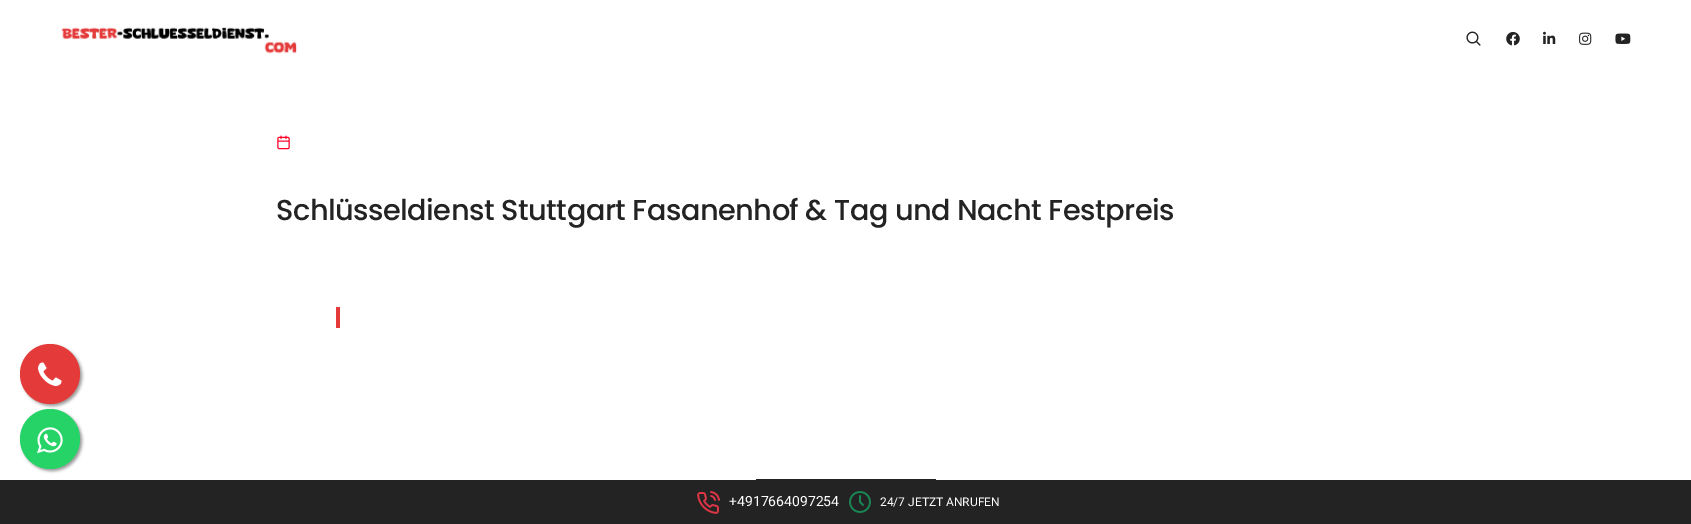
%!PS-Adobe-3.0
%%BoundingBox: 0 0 1691 524
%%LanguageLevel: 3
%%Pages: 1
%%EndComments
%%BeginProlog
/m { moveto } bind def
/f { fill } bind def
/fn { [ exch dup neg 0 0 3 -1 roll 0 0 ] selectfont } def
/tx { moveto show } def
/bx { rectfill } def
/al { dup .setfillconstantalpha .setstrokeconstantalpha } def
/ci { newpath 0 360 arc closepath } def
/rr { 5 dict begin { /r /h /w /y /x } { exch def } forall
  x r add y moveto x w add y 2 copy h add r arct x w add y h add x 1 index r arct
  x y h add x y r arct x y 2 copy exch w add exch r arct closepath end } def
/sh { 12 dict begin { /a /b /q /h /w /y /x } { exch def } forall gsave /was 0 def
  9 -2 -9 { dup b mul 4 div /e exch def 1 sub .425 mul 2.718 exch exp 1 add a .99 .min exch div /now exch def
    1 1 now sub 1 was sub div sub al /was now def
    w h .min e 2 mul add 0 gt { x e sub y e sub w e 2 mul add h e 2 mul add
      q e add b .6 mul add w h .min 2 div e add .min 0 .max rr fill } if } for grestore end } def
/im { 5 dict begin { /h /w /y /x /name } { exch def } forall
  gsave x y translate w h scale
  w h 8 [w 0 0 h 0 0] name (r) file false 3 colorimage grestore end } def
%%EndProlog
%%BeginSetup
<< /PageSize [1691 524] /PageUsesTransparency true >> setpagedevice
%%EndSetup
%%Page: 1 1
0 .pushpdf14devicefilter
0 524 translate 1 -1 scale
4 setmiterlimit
1 setgray
0 0 1691 524 bx
(image0.raw) 61 27 236 27 im
(image1.raw) 1466 31 15 15 im
(image2.raw) 1506 32 14 14 im
(image3.raw) 1543 31 13 13 im
(image4.raw) 1579 32 13 13 im
(image5.raw) 1615 33 16 11 im
(image6.raw) 277 135 13 15 im
/Poppins-Medium 28.8 fn
0.137 setgray
276 220 m -0.5 0 (Schlüsseldienst Stuttgart Fasanenhof & Tag und Nacht Festpreis) ashow
0.898 0.227 0.227 setrgbcolor
336 307 4 21 bx
0.137 setgray
756 479 180 1 bx
0.6 setgray
22 411 60 60 30 1.5 1 sh
0.145 0.827 0.4 setrgbcolor
50 439 30 ci f
0.6 setgray
22 346 60 60 30 1.5 1 sh
0.898 0.227 0.227 setrgbcolor
50 374 30 ci f
(image7.raw) 38 362 24 24 im
(image8.raw) 37 427 26 27 im
0.137 setgray
0 480 1691 44 bx
(image9.raw) 697 491 23 23 im
/Roboto-Regular 14 fn
1 setgray
(+4917664097254) 729 506 tx
(image10.raw) 849 491 22 22 im
/Roboto-Regular 12 fn
(24/7 JETZT ANRUFEN) 880 506 tx
.poppdf14devicefilter showpage
%%EOF
